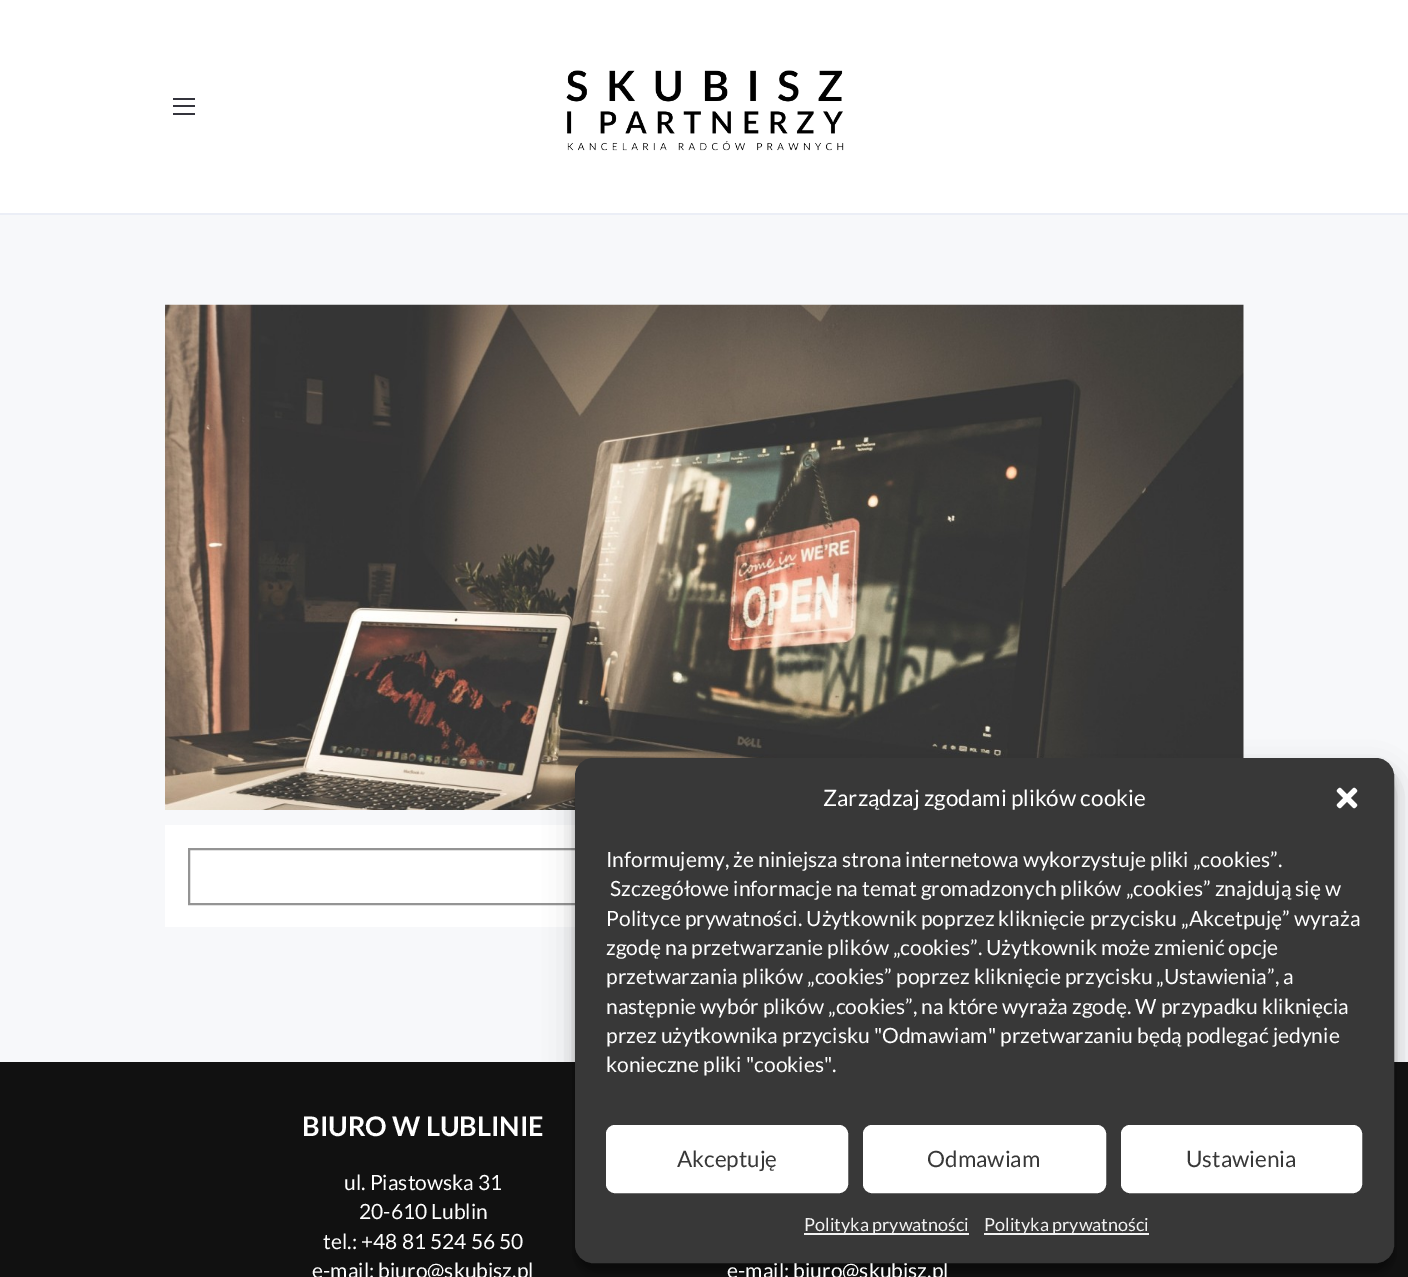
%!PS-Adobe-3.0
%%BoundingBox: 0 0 1408 1277
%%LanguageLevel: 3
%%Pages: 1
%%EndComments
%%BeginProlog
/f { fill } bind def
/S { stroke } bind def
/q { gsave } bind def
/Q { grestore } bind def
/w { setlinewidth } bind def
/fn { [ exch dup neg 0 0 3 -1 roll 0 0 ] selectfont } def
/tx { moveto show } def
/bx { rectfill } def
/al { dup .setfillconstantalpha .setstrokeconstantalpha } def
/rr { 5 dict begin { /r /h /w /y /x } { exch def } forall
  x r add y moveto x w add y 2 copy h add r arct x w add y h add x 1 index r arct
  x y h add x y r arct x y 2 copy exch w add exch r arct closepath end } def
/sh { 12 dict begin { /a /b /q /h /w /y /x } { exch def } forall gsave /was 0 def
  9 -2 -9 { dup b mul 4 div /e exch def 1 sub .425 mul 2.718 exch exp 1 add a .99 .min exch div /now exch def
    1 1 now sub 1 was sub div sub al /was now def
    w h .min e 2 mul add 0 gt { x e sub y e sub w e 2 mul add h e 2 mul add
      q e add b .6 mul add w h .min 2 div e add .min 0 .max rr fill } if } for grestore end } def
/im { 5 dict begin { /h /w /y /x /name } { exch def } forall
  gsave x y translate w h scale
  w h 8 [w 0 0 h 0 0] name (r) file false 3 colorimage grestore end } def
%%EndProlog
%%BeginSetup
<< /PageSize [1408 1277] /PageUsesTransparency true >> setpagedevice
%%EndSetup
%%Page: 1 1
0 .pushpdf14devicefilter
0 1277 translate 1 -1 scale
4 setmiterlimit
1 setgray
0 0 1408 1277 bx
0.969 0.973 0.98 setrgbcolor
0 215 1408 847 bx
1 setgray
1243 305 1 453 bx
(image2.raw) 165 304 1079 506 im
165 825 410 102 bx
0.58 setgray
2 w
189 849 917 55 rectstroke
0.067 setgray
0 1062 1408 215 bx
0 setgray
575 767 819 505 18 4.5 0.23 sh
575 773 819 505 18 15 0.19 sh
/Lato-Regular 21 fn
1 setgray
(e-mail: biuro@skubisz.pl) 727 1278 tx
0.22 setgray
576 759 817 503 17 rr q f Q
S
/Lato-Regular 22.5 fn
1 setgray
(Zarządzaj zgodami plików cookie) 823 806 tx
(image0.raw) 1336 787 22 22 im
/Lato-Regular 21 fn
(Informujemy, że niniejsza strona internetowa wykorzystuje pliki „cookies”.) 606 867 tx
(Szczegółowe informacje na temat gromadzonych plików „cookies” znajdują się w) 610 896 tx
(Polityce prywatności. Użytkownik poprzez kliknięcie przycisku „Akcetpuję” wyraża) 606 926 tx
(zgodę na przetwarzanie plików „cookies”. Użytkownik może zmienić opcje) 606 955 tx
(przetwarzania plików „cookies” poprzez kliknięcie przycisku „Ustawienia”, a) 606 984 tx
(następnie wybór plików „cookies”, na które wyraża zgodę. W przypadku kliknięcia) 606 1014 tx
(przez użytkownika przycisku "Odmawiam" przetwarzaniu będą podlegać jedynie) 606 1043 tx
(konieczne pliki "cookies".) 606 1072 tx
607 1126 240 66 8 rr q f Q
S
/Lato-Regular 22.5 fn
0.22 setgray
(Akceptuję) 677 1167 tx
1 setgray
864 1126 241 66 8 rr q f Q
S
0.22 setgray
(Odmawiam) 927 1167 tx
1 setgray
1122 1126 239 66 8 rr q f Q
S
0.22 setgray
(Ustawienia) 1186 1167 tx
0.949 setgray
804 1233 165 2 bx
/Lato-Regular 18 fn
(Polityka prywatności) 804 1231 tx
984 1233 165 2 bx
(Polityka prywatności) 984 1231 tx
0.922 0.933 0.965 setrgbcolor
0 213 1408 2 bx
0.204 0.204 0.235 setrgbcolor
173 113 22 2 bx
173 98 22 2 bx
173 105 22 2 bx
(image1.raw) 566 70 278 81 im
/Lato-Bold 27 fn
1 setgray
(BIURO W LUBLINIE) 302 1136 tx
/Lato-Regular 21 fn
(ul. Piastowska 31) 344 1190 tx
(20-610 Lublin) 359 1219 tx
(tel.: +48 81 524 56 50) 323 1249 tx
(e-mail: biuro@skubisz.pl) 312 1278 tx
.poppdf14devicefilter showpage
%%EOF
